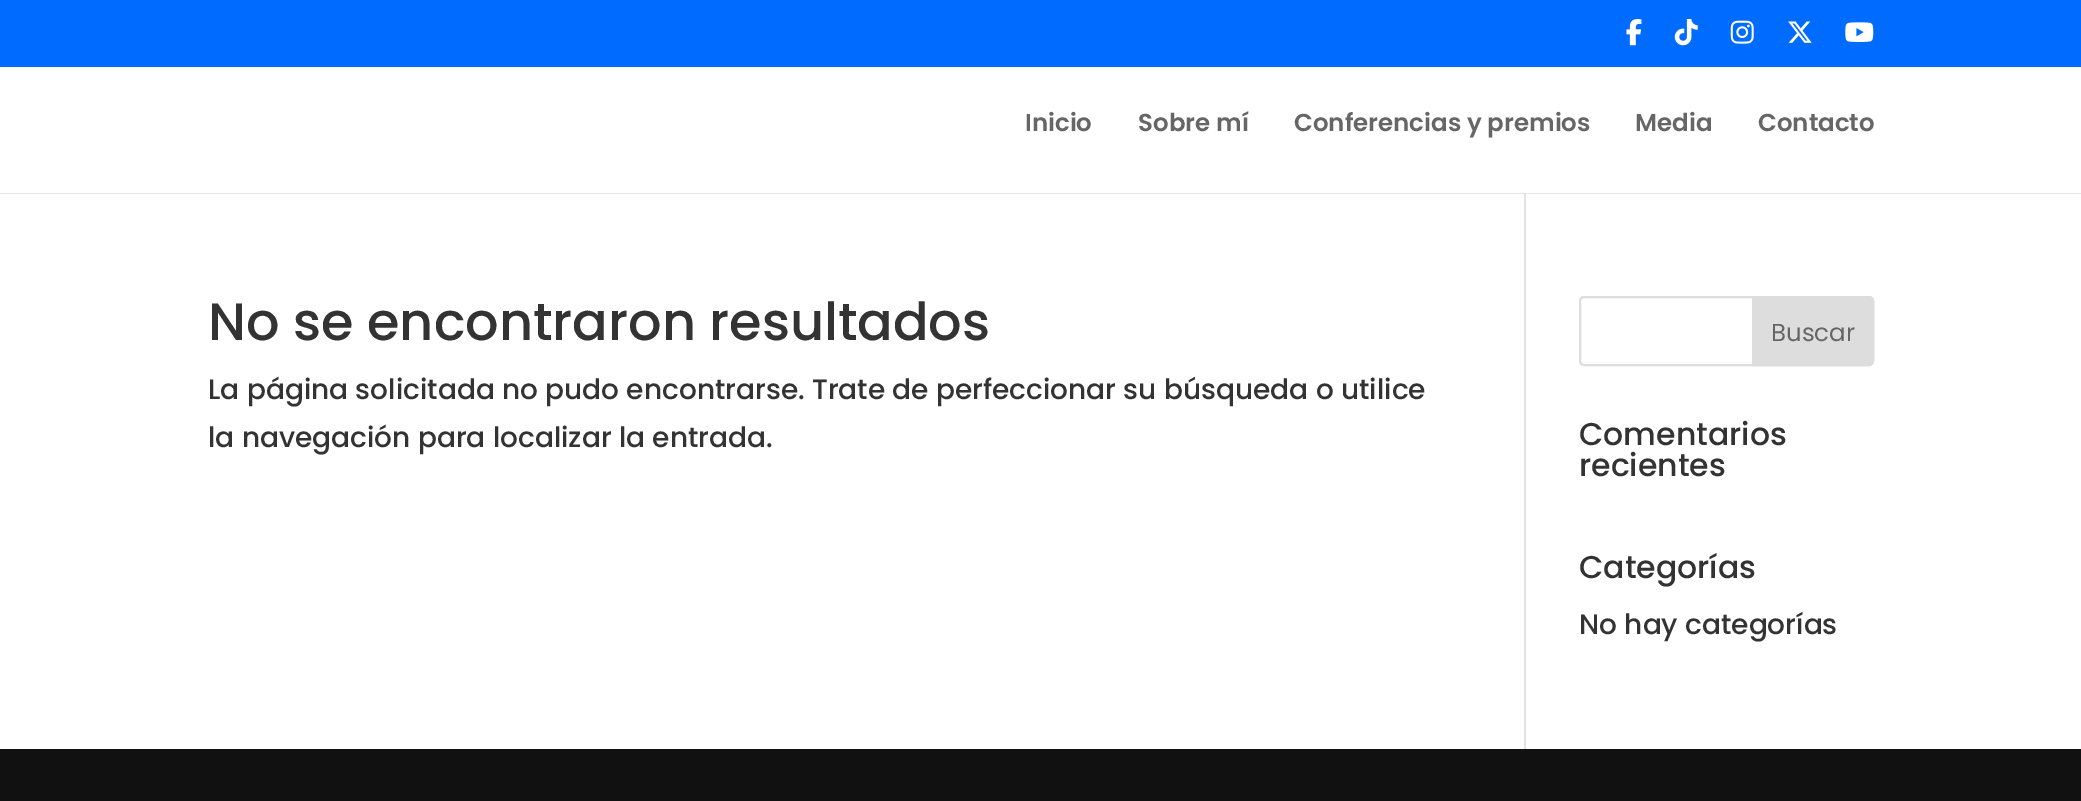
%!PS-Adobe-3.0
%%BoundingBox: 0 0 2081 801
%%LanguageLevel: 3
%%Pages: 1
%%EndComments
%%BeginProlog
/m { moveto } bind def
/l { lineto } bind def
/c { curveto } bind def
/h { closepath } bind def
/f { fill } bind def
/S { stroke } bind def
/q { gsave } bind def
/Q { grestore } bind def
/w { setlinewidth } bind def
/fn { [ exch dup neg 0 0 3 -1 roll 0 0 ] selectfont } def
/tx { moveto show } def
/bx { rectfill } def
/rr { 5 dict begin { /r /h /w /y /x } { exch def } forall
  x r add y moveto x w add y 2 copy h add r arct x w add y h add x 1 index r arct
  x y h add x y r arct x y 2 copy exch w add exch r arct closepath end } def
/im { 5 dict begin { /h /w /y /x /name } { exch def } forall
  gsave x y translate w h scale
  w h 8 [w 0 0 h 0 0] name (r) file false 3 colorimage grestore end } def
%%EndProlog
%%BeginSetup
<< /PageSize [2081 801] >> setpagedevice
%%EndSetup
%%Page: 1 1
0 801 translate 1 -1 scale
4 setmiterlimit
1 setgray
0 0 2081 801 bx
0 0.424 1 setrgbcolor
0 0 2081 67 bx
(image0.raw) 1626 19 16 27 im
(image1.raw) 1674 19 24 27 im
(image2.raw) 1730 20 24 24 im
(image3.raw) 1788 21 24 22 im
(image4.raw) 1845 22 29 20 im
0.902 setgray
0 192 m 0 194 l 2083 194 l 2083 54 l 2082 54 l 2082 192 l h f
1 setgray
0 192 2081 1 bx
/Poppins-SemiBold 24.5 fn
0.4 setgray
(Inicio) 1025 131 tx
(Sobre mí) 1138 131 tx
(Conferencias y premios) 1294 131 tx
(Media) 1635 131 tx
(Contacto) 1758 131 tx
0.886 setgray
1524 194 2 555 bx
/Poppins-Medium 52.5 fn
0.2 setgray
(No se encontraron resultados) 208 340 tx
/Poppins-Medium 28 fn
(La página solicitada no pudo encontrarse. Trate de perfeccionar su búsqueda o utilice) 208 399 tx
(la navegación para localizar la entrada.) 208 447 tx
0.867 setgray
2 w
1580 297 293 68 4 rr S
1753 297 m 1869 297 l 1871 297 1873 299 1873 301 c 1873 361 l 1873 363 1871 365 1869 365 c 1753 365 l h q f Q
S
/Poppins-Regular 24.5 fn
0.4 setgray
(Buscar) 1771 341 tx
/Poppins-Medium 31.5 fn
0.2 setgray
(Comentarios) 1579 445 tx
(recientes) 1579 476 tx
(Categorías) 1579 578 tx
/Poppins-Medium 28 fn
(No hay categorías) 1579 634 tx
0.067 setgray
0 749 2081 52 bx
showpage
%%EOF
